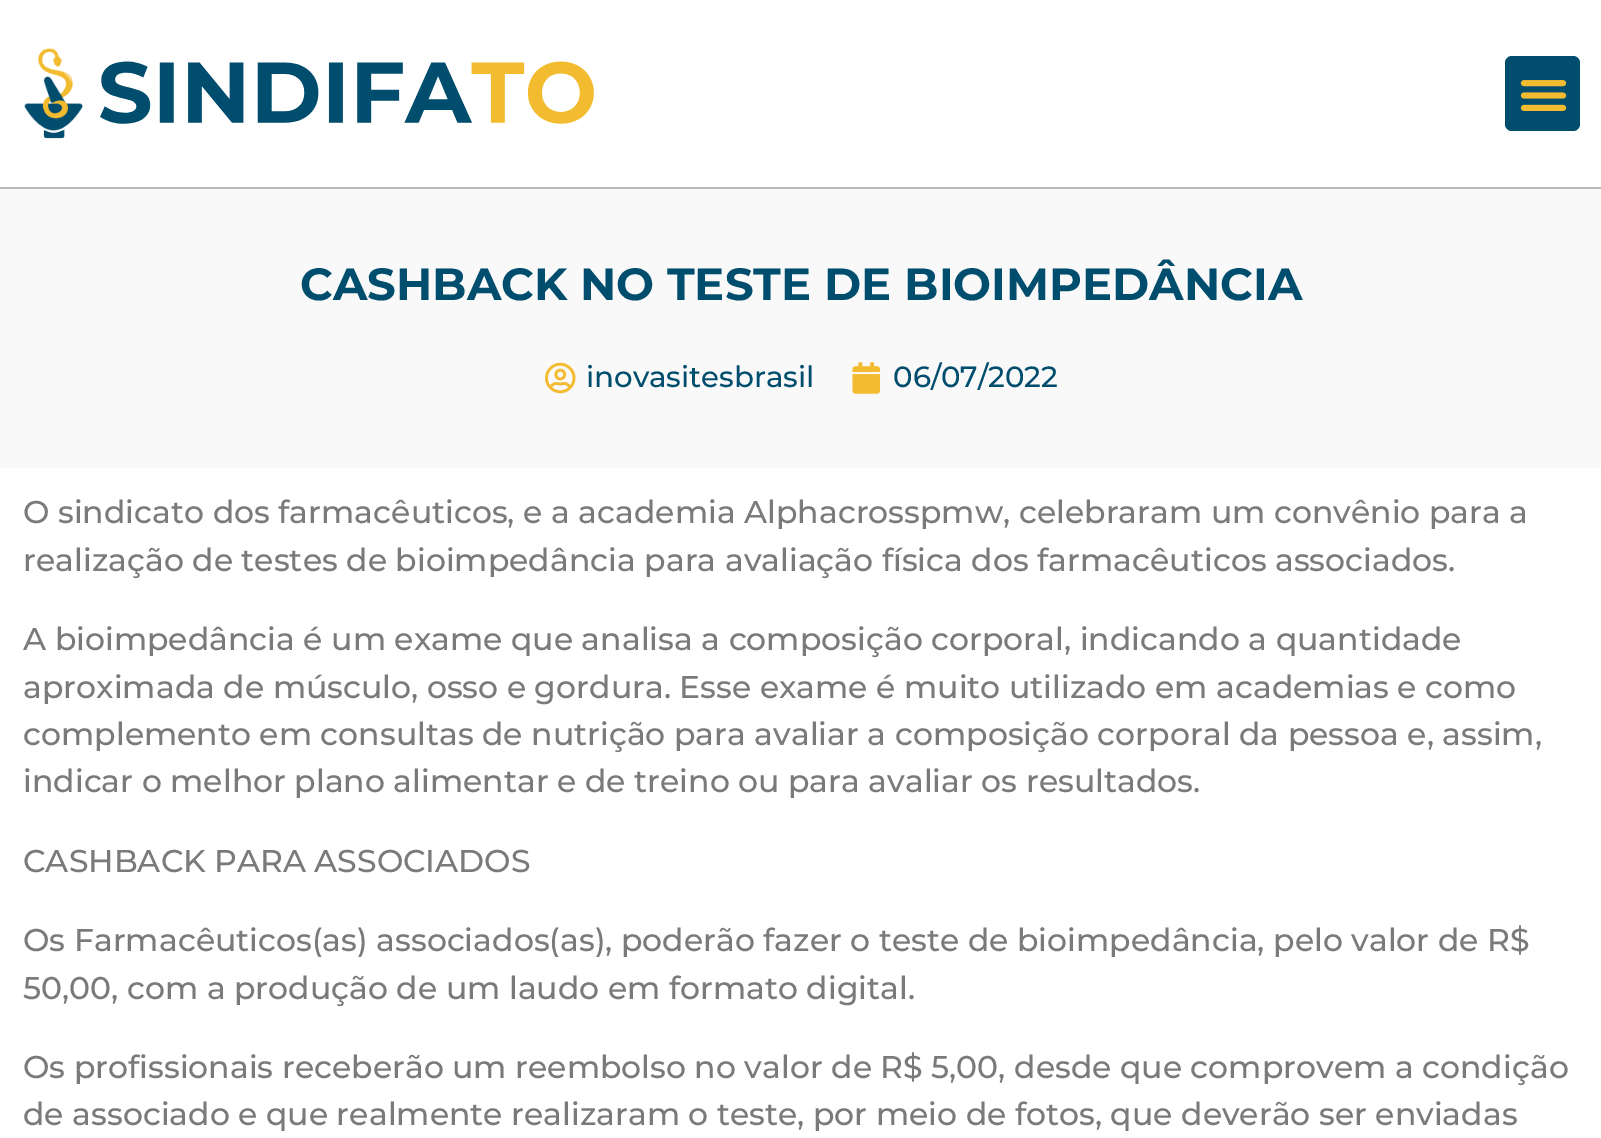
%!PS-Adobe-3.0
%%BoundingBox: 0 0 1601 1138
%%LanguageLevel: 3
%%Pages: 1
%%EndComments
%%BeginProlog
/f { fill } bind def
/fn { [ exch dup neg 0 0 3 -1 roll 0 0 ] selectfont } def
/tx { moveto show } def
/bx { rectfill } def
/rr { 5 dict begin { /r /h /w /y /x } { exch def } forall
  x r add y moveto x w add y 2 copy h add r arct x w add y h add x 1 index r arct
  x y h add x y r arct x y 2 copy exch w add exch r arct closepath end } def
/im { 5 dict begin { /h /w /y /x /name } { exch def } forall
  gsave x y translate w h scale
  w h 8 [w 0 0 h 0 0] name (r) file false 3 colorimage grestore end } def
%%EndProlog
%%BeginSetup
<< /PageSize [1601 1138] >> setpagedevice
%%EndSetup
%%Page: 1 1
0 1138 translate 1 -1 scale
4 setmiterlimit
1 setgray
0 0 1601 1138 bx
0.725 setgray
0 187 1601 2 bx
(image0.raw) 24 48 570 91 im
0 0.302 0.427 setrgbcolor
1505 56 75 75 7 rr f
(image1.raw) 1520 80 47 31 im
0.976 setgray
0 189 1601 279 bx
/Montserrat-Bold 45 fn
0 0.302 0.427 setrgbcolor
(CASHBACK NO TESTE DE BIOIMPEDÂNCIA) 300 300 tx
(image2.raw) 545 362 31 32 im
/Montserrat-Medium 29.25 fn
(inovasitesbrasil) 586 387 tx
(image3.raw) 852 362 29 32 im
(06/07/2022) 893 387 tx
/Montserrat-Medium 31.5 fn
0.478 setgray
(O sindicato dos farmacêuticos, e a academia Alphacrosspmw, celebraram um convênio para a) 23 523 tx
(realização de testes de bioimpedância para avaliação física dos farmacêuticos associados.) 23 571 tx
(A bioimpedância é um exame que analisa a composição corporal, indicando a quantidade) 23 650 tx
(aproximada de músculo, osso e gordura. Esse exame é muito utilizado em academias e como) 23 698 tx
(complemento em consultas de nutrição para avaliar a composição corporal da pessoa e, assim,) 23 745 tx
(indicar o melhor plano alimentar e de treino ou para avaliar os resultados.) 23 792 tx
(CASHBACK PARA ASSOCIADOS) 23 872 tx
(Os Farmacêuticos\(as\) associados\(as\), poderão fazer o teste de bioimpedância, pelo valor de R$) 23 951 tx
(50,00, com a produção de um laudo em formato digital.) 23 999 tx
(Os profissionais receberão um reembolso no valor de R$ 5,00, desde que comprovem a condição) 23 1078 tx
(de associado e que realmente realizaram o teste, por meio de fotos, que deverão ser enviadas) 23 1125 tx
showpage
%%EOF
